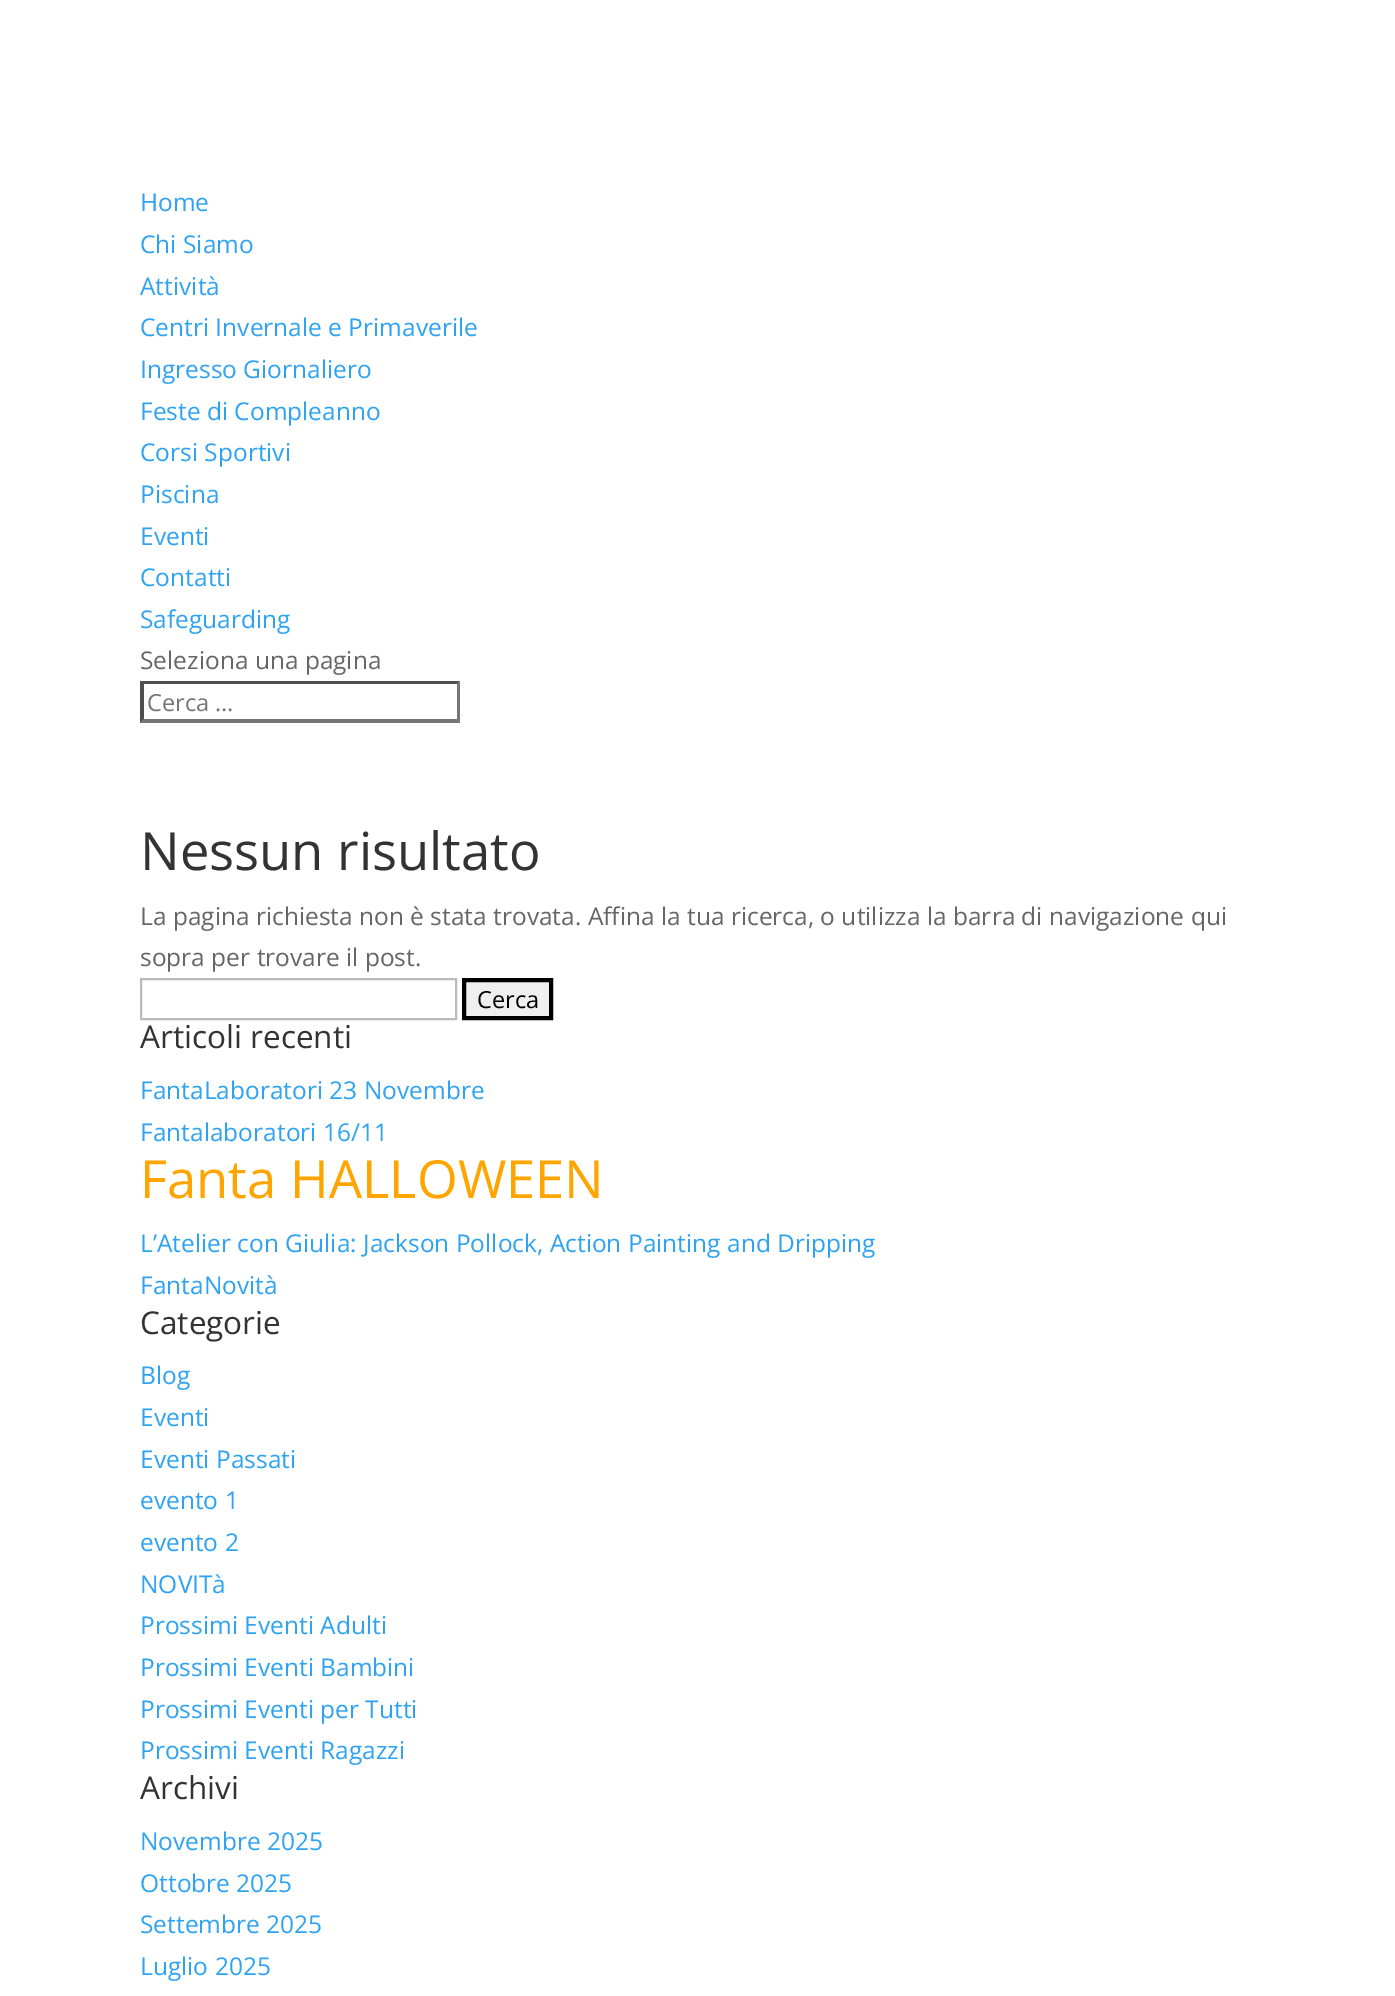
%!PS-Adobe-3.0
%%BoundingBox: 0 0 1395 1996
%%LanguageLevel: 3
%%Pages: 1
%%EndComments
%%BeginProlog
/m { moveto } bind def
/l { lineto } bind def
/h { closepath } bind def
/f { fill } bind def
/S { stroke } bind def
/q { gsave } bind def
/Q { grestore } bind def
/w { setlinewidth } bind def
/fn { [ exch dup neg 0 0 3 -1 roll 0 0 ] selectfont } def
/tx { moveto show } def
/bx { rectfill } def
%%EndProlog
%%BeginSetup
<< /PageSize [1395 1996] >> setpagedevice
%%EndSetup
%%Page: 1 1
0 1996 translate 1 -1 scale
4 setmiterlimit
1 setgray
0 0 1395 1996 bx
/OpenSans-Regular 24.5 fn
0.18 0.639 0.949 setrgbcolor
(Home) 140 211 tx
(Chi Siamo) 140 253 tx
(Attività) 140 295 tx
(Centri Invernale e Primaverile) 140 336 tx
(Ingresso Giornaliero) 140 378 tx
(Feste di Compleanno) 140 420 tx
(Corsi Sportivi) 140 461 tx
(Piscina) 140 503 tx
(Eventi) 140 545 tx
(Contatti) 140 586 tx
(Safeguarding) 140 628 tx
0.4 setgray
(Seleziona una pagina) 140 669 tx
0.31 setgray
140 681 m 460 681 l 457 684 l 144 684 l h f
0.463 setgray
460 681 m 460 723 l 457 719 l 457 684 l h f
460 723 m 140 723 l 144 719 l 457 719 l h f
0.31 setgray
140 723 m 140 681 l 144 684 l 144 719 l h f
/OpenSans-Regular 23.5 fn
0.459 setgray
(Cerca …) 147 711 tx
/OpenSans-Regular 52.5 fn
0.2 setgray
(Nessun risultato) 140 870 tx
/OpenSans-Regular 24.5 fn
0.4 setgray
(La pagina richiesta non è stata trovata. Affina la tua ricerca, o utilizza la barra di navigazione qui) 140 925 tx
(sopra per trovare il post.) 140 966 tx
0.733 setgray
2 w
141 979 315 40 rectstroke
0.937 setgray
464 980 m 551 980 l 551 1018 l 464 1018 l h q f Q
0 setgray
4 w
S
/OpenSans-Regular 23.5 fn
(Cerca) 477 1008 tx
/OpenSans-Regular 31.5 fn
0.2 setgray
(Articoli recenti) 140 1048 tx
/OpenSans-Regular 24.5 fn
0.18 0.639 0.949 setrgbcolor
(FantaLaboratori 23 Novembre) 140 1099 tx
(Fantalaboratori 16/11) 140 1141 tx
/OpenSans-Regular 52.5 fn
1 0.647 0 setrgbcolor
(Fanta HALLOWEEN) 140 1198 tx
/OpenSans-Regular 24.5 fn
0.18 0.639 0.949 setrgbcolor
(L’Atelier con Giulia: Jackson Pollock, Action Painting and Dripping) 140 1252 tx
(FantaNovità) 140 1294 tx
/OpenSans-Regular 31.5 fn
0.2 setgray
(Categorie) 140 1334 tx
/OpenSans-Regular 24.5 fn
0.18 0.639 0.949 setrgbcolor
(Blog) 140 1384 tx
(Eventi) 140 1426 tx
(Eventi Passati) 140 1468 tx
(evento 1) 140 1509 tx
(evento 2) 140 1551 tx
(NOVITà) 140 1593 tx
(Prossimi Eventi Adulti) 140 1634 tx
(Prossimi Eventi Bambini) 140 1676 tx
(Prossimi Eventi per Tutti) 140 1718 tx
(Prossimi Eventi Ragazzi) 140 1759 tx
/OpenSans-Regular 31.5 fn
0.2 setgray
(Archivi) 140 1799 tx
/OpenSans-Regular 24.5 fn
0.18 0.639 0.949 setrgbcolor
(Novembre 2025) 140 1850 tx
(Ottobre 2025) 140 1892 tx
(Settembre 2025) 140 1933 tx
(Luglio 2025) 140 1975 tx
showpage
%%EOF
